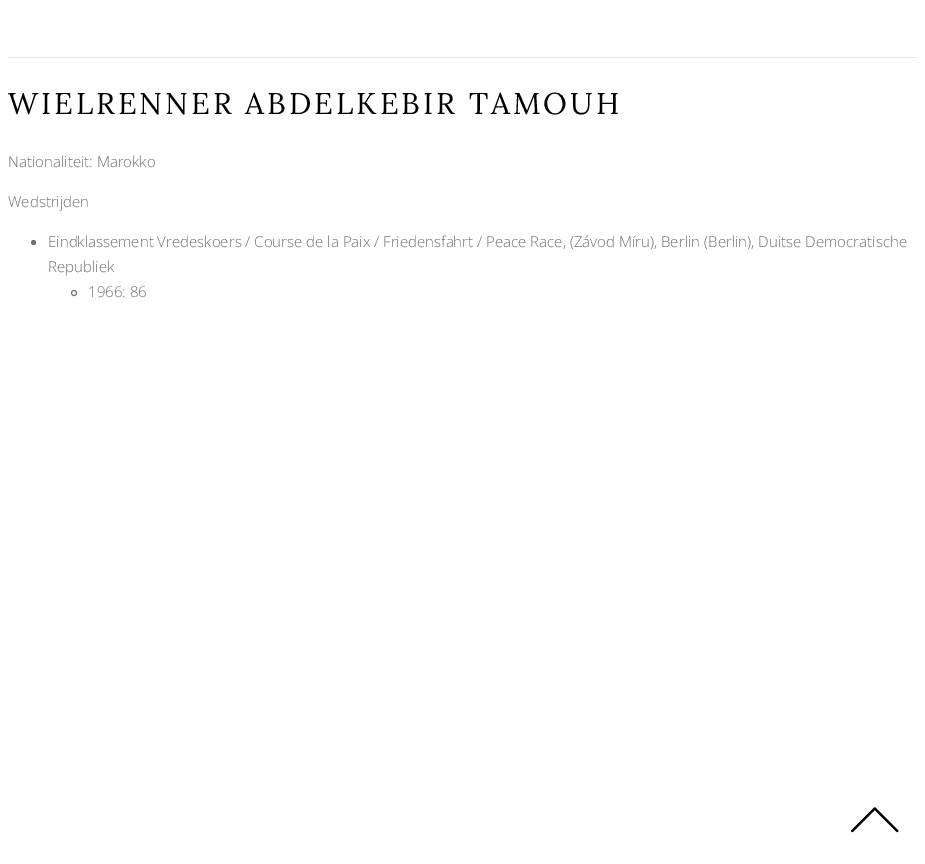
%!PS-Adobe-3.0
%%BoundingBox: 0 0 925 864
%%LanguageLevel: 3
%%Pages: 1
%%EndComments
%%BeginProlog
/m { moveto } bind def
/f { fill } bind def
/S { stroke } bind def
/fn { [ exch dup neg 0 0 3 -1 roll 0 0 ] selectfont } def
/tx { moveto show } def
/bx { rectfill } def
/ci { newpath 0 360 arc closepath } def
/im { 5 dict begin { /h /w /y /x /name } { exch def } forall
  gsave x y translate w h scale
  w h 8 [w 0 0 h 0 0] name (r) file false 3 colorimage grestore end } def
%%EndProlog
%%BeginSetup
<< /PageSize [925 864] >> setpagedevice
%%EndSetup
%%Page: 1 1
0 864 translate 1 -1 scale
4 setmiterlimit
1 setgray
0 0 925 864 bx
0.902 setgray
8 57 909 1 bx
/Lora-Regular 30 fn
0 setgray
8 114 m 3 0 (WIELRENNER ABDELKEBIR TAMOUH) ashow
/OpenSans-Light 15 fn
0.443 setgray
(Nationaliteit: Marokko) 8 167 tx
(Wedstrijden) 8 207 tx
33.5 242.5 2.5 ci f
(Eindklassement Vredeskoers / Course de la Paix / Friedensfahrt / Peace Race, \(Závod Míru\), Berlin \(Berlin\), Duitse Democratische) 48 247 tx
(Republiek) 48 272 tx
74 293 2.5 ci S
(1966: 86) 88 297 tx
(image0.raw) 851 807 48 26 im
showpage
%%EOF
